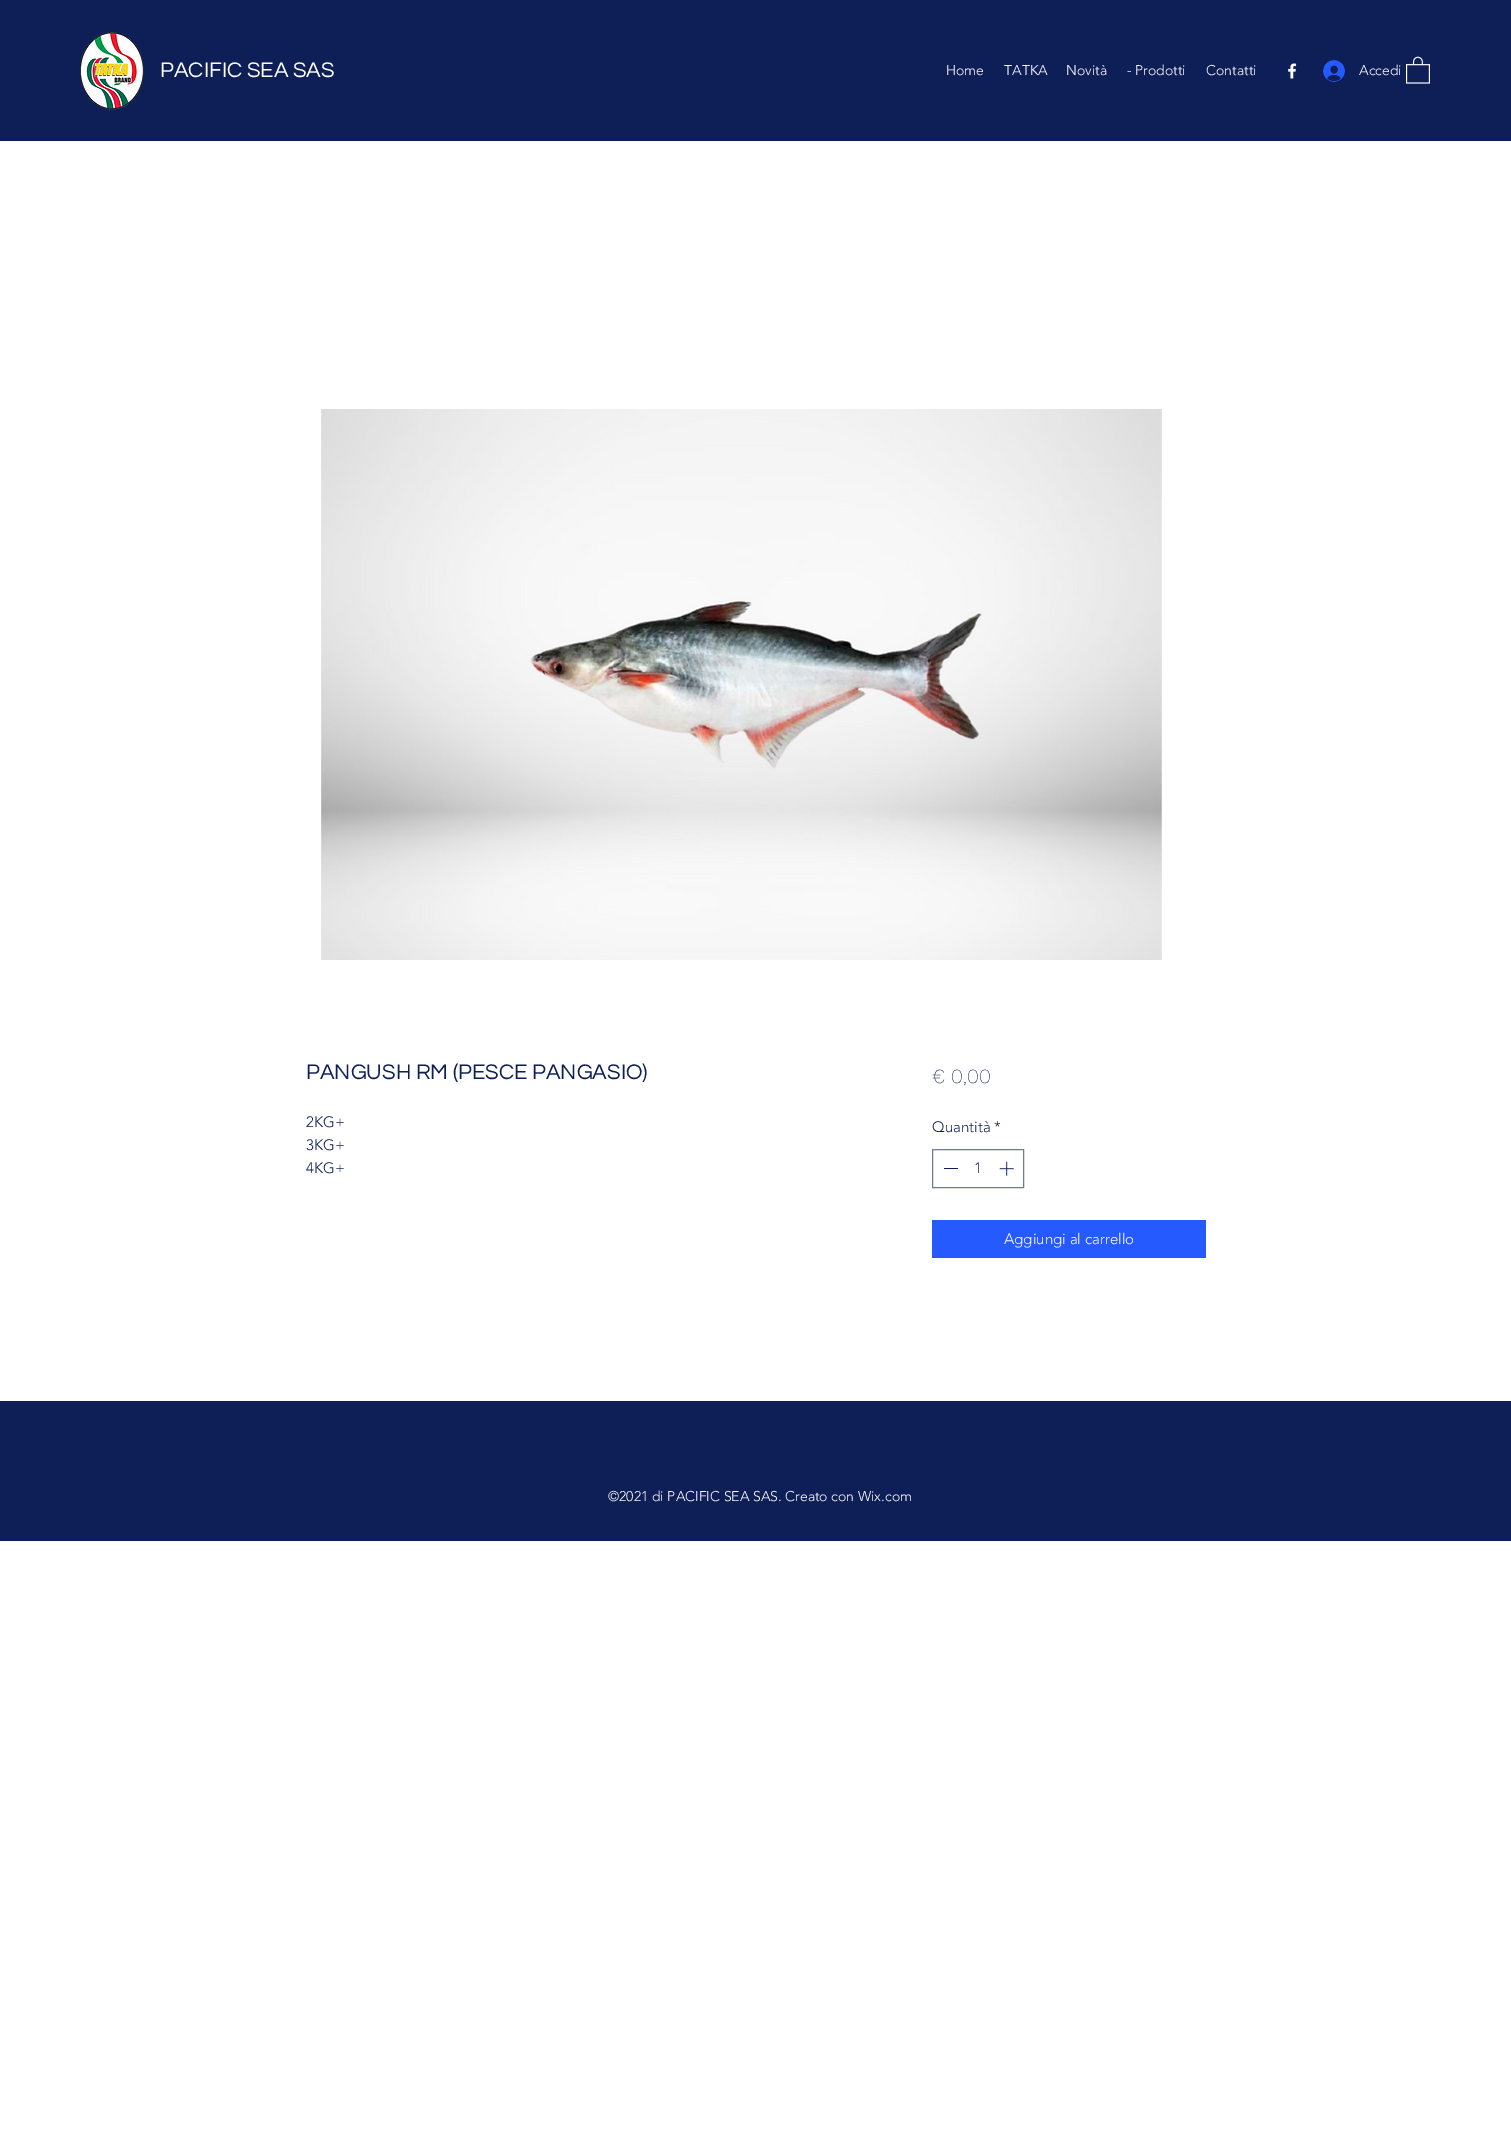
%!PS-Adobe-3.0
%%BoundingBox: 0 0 1511 2132
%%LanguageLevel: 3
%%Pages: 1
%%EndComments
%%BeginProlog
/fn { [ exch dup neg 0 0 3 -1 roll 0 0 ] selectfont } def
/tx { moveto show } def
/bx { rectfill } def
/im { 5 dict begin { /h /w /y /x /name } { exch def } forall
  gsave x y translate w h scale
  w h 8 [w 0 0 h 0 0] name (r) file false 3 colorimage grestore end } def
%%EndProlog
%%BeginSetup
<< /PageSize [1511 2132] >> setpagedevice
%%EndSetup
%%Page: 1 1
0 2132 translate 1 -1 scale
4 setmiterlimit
1 setgray
0 0 1511 2132 bx
0.055 0.122 0.345 setrgbcolor
0 0 1511 141 bx
(image0.raw) 80 32 64 78 im
/Questrial-Regular 22 fn
1 setgray
(PACIFIC SEA SAS) 160 77 tx
/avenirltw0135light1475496-Light 14 fn
(Home) 946 75 tx
(TATKA) 1004 75 tx
(Novità) 1066 75 tx
(- Prodotti) 1127 75 tx
(Contatti) 1206 75 tx
(image1.raw) 1288 63 9 16 im
(image2.raw) 1323 60 22 22 im
(Accedi) 1359 75 tx
(image3.raw) 1406 56 24 28 im
(image4.raw) 321 409 841 551 im
/Questrial-Regular 22 fn
0.055 0.122 0.345 setrgbcolor
(PANGUSH RM \(PESCE PANGASIO\)) 306 1079 tx
/avenirltw0135light1475496-Light 15 fn
(2KG+) 306 1127 tx
(3KG+) 306 1150 tx
(4KG+) 306 1173 tx
/WorkSans-ExtraLight 20 fn
(€ 0,00) 932 1083 tx
/avenirltw0135light1475496-Light 15 fn
(Quantità *) 932 1132 tx
0.431 0.475 0.608 setrgbcolor
932.5 1149.5 91 38 rectstroke
0.055 0.122 0.345 setrgbcolor
944 1168 14 1 bx
(1) 974 1173 tx
(image5.raw) 999 1161 15 15 im
0.145 0.357 0.996 setrgbcolor
932 1220 274 38 bx
1 setgray
(Aggiungi al carrello) 1004 1244 tx
0.055 0.122 0.345 setrgbcolor
0 1401 1511 140 bx
/avenirltw0135light1475496-Light 14 fn
1 setgray
(©2021 di PACIFIC SEA SAS. Creato con Wix.com) 608 1501 tx
showpage
%%EOF
